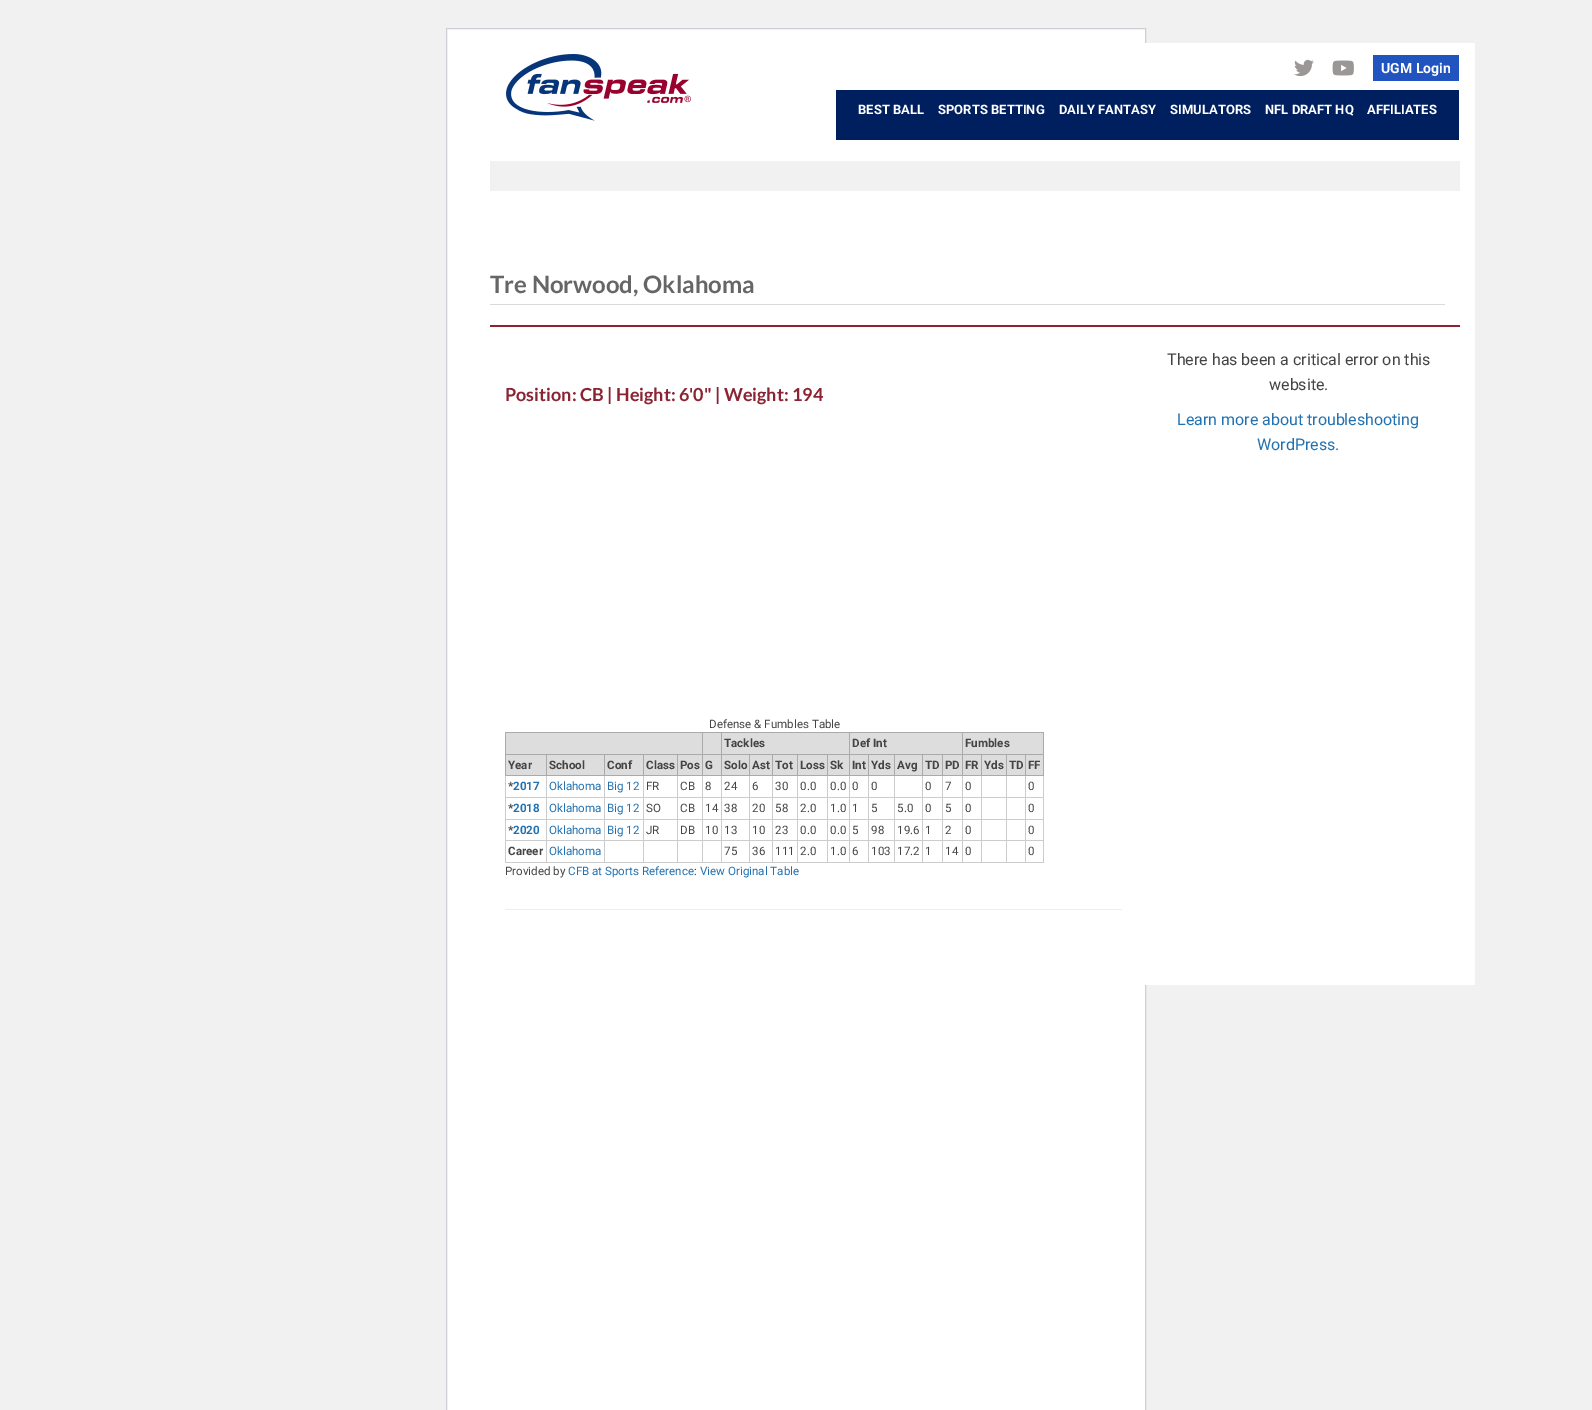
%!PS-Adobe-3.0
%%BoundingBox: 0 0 1592 1410
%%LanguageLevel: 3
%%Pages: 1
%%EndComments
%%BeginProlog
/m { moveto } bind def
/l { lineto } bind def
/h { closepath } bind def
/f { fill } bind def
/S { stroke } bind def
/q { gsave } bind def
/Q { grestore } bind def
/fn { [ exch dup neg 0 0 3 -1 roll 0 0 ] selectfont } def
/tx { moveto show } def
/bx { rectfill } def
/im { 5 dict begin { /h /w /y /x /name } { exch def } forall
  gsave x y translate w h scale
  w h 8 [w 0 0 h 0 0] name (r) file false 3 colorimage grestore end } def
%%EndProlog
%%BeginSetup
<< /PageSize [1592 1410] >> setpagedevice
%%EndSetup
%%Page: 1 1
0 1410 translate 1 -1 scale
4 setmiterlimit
0.945 setgray
0 0 1592 1410 bx
1 setgray
446.5 28.5 m 1145.5 28.5 l 1145.5 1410.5 l 446.5 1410.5 l h q f Q
0.8 0.816 0.831 setrgbcolor
S
1 setgray
1145 43 330 942 bx
(image0.raw) 506 54 185 67 im
(image1.raw) 1294 59 20 18 im
(image2.raw) 1332 60 22 16 im
0.133 0.329 0.749 setrgbcolor
1373 55 86 26 bx
/Roboto-Bold 14 fn
1 setgray
(UGM Login) 1381 73 tx
0 0.122 0.373 setrgbcolor
836 90 623 50 bx
/Roboto-Bold 13 fn
1 setgray
(BEST BALL) 858 114 tx
(SPORTS BETTING) 938 114 tx
(DAILY FANTASY) 1059 114 tx
(SIMULATORS) 1170 114 tx
(NFL DRAFT HQ) 1265 114 tx
(AFFILIATES) 1367 114 tx
0.945 0.945 0.949 setrgbcolor
490 161 970 30 bx
0.855 setgray
490 304 955 1 bx
/Lato-Bold 24 fn
0.4 setgray
(Tre Norwood, Oklahoma) 490 293 tx
0.545 0.137 0.196 setrgbcolor
490 325 970 2 bx
/Lato-Bold 18 fn
(Position: CB | Height: 6'0" | Weight: 194) 505 401 tx
/Roboto-Regular 11.6 fn
0.267 setgray
(Defense & Fumbles Table) 709 728 tx
0.867 setgray
506 733 196 21 bx
0.667 setgray
962 732 82 1 bx
1025 754 19 1 bx
0.8 setgray
1025 797 19 1 bx
1025 819 19 1 bx
1025 840 19 1 bx
1043 840 1 23 bx
1043 819 1 22 bx
1043 775 1 45 bx
0.667 setgray
1043 754 1 22 bx
0.8 setgray
1025 862 19 1 bx
1025 840 1 23 bx
1006 840 20 1 bx
1025 819 1 22 bx
1006 819 20 1 bx
1025 797 1 23 bx
1006 797 20 1 bx
1025 775 1 23 bx
0.667 setgray
1025 775 19 1 bx
1025 754 1 22 bx
1006 754 20 1 bx
0.8 setgray
1006 862 20 1 bx
1006 840 1 23 bx
981 840 26 1 bx
1006 819 1 22 bx
981 819 26 1 bx
1006 797 1 23 bx
981 797 26 1 bx
1006 775 1 23 bx
0.667 setgray
1006 775 20 1 bx
1006 754 1 22 bx
981 754 26 1 bx
0.8 setgray
981 862 26 1 bx
981 840 1 23 bx
962 840 20 1 bx
981 819 1 22 bx
962 819 20 1 bx
981 797 1 23 bx
962 797 20 1 bx
981 775 1 23 bx
0.667 setgray
981 775 26 1 bx
981 754 1 22 bx
962 754 20 1 bx
0.8 setgray
962 862 20 1 bx
962 840 1 23 bx
942 840 21 1 bx
962 819 1 22 bx
942 819 21 1 bx
962 797 1 23 bx
942 797 21 1 bx
962 775 1 23 bx
0.667 setgray
962 775 20 1 bx
962 754 1 22 bx
942 754 21 1 bx
962 732 1 23 bx
849 732 114 1 bx
0.8 setgray
942 862 21 1 bx
942 840 1 23 bx
922 840 21 1 bx
942 819 1 22 bx
922 819 21 1 bx
942 797 1 23 bx
922 797 21 1 bx
942 775 1 23 bx
0.667 setgray
942 775 21 1 bx
942 754 1 22 bx
922 754 21 1 bx
0.8 setgray
922 862 21 1 bx
922 840 1 23 bx
894 840 29 1 bx
922 819 1 22 bx
894 819 29 1 bx
922 797 1 23 bx
894 797 29 1 bx
922 775 1 23 bx
0.667 setgray
922 775 21 1 bx
922 754 1 22 bx
894 754 29 1 bx
0.8 setgray
894 862 29 1 bx
894 840 1 23 bx
868 840 27 1 bx
894 819 1 22 bx
868 819 27 1 bx
894 797 1 23 bx
868 797 27 1 bx
894 775 1 23 bx
0.667 setgray
894 775 29 1 bx
894 754 1 22 bx
868 754 27 1 bx
0.8 setgray
868 862 27 1 bx
868 840 1 23 bx
849 840 20 1 bx
868 819 1 22 bx
849 819 20 1 bx
868 797 1 23 bx
849 797 20 1 bx
868 775 1 23 bx
0.667 setgray
868 775 27 1 bx
868 754 1 22 bx
849 754 20 1 bx
0.8 setgray
849 862 20 1 bx
849 840 1 23 bx
827 840 23 1 bx
849 819 1 22 bx
827 819 23 1 bx
849 797 1 23 bx
827 797 23 1 bx
849 775 1 23 bx
0.667 setgray
849 775 20 1 bx
849 754 1 22 bx
827 754 23 1 bx
849 732 1 23 bx
721 732 129 1 bx
0.8 setgray
827 862 23 1 bx
827 840 1 23 bx
797 840 31 1 bx
827 819 1 22 bx
797 819 31 1 bx
827 797 1 23 bx
797 797 31 1 bx
827 775 1 23 bx
0.667 setgray
827 775 23 1 bx
827 754 1 22 bx
797 754 31 1 bx
0.8 setgray
797 862 31 1 bx
797 840 1 23 bx
772 840 26 1 bx
797 819 1 22 bx
772 819 26 1 bx
797 797 1 23 bx
772 797 26 1 bx
797 775 1 23 bx
0.667 setgray
797 775 31 1 bx
797 754 1 22 bx
772 754 26 1 bx
0.8 setgray
772 862 26 1 bx
772 840 1 23 bx
749 840 24 1 bx
772 819 1 22 bx
749 819 24 1 bx
772 797 1 23 bx
749 797 24 1 bx
772 775 1 23 bx
0.667 setgray
772 775 26 1 bx
772 754 1 22 bx
749 754 24 1 bx
0.8 setgray
749 862 24 1 bx
749 840 1 23 bx
721 840 29 1 bx
749 819 1 22 bx
721 819 29 1 bx
749 797 1 23 bx
721 797 29 1 bx
749 775 1 23 bx
0.667 setgray
749 775 24 1 bx
749 754 1 22 bx
721 754 29 1 bx
0.8 setgray
721 862 29 1 bx
721 840 1 23 bx
702 840 20 1 bx
721 819 1 22 bx
702 819 20 1 bx
721 797 1 23 bx
702 797 20 1 bx
721 775 1 23 bx
0.667 setgray
721 775 29 1 bx
721 754 1 22 bx
702 754 20 1 bx
721 732 1 23 bx
702 732 20 1 bx
0.8 setgray
702 862 20 1 bx
702 840 1 23 bx
677 840 26 1 bx
702 819 1 22 bx
677 819 26 1 bx
702 797 1 23 bx
677 797 26 1 bx
702 775 1 23 bx
0.667 setgray
702 775 20 1 bx
702 754 1 22 bx
677 754 26 1 bx
702 732 1 23 bx
505 732 198 1 bx
0.8 setgray
677 862 26 1 bx
677 840 1 23 bx
643 840 35 1 bx
677 819 1 22 bx
643 819 35 1 bx
677 797 1 23 bx
643 797 35 1 bx
677 775 1 23 bx
0.667 setgray
677 775 26 1 bx
677 754 1 22 bx
643 754 35 1 bx
0.8 setgray
643 862 35 1 bx
643 840 1 23 bx
604 840 40 1 bx
643 819 1 22 bx
604 819 40 1 bx
643 797 1 23 bx
604 797 40 1 bx
643 775 1 23 bx
0.667 setgray
643 775 35 1 bx
643 754 1 22 bx
604 754 40 1 bx
0.8 setgray
604 862 40 1 bx
604 840 1 23 bx
546 840 59 1 bx
604 819 1 22 bx
546 819 59 1 bx
604 797 1 23 bx
546 797 59 1 bx
604 775 1 23 bx
0.667 setgray
604 775 40 1 bx
604 754 1 22 bx
546 754 59 1 bx
0.8 setgray
546 862 59 1 bx
546 840 1 23 bx
505 840 42 1 bx
546 819 1 22 bx
505 819 42 1 bx
546 797 1 23 bx
505 797 42 1 bx
546 775 1 23 bx
0.667 setgray
546 775 59 1 bx
546 754 1 22 bx
505 754 42 1 bx
0.8 setgray
505 862 42 1 bx
505 840 1 23 bx
505 819 1 22 bx
505 775 1 45 bx
0.667 setgray
505 775 42 1 bx
505 754 1 22 bx
505 732 1 23 bx
0.867 setgray
703 733 18 21 bx
722 733 127 21 bx
/Roboto-Bold 11.6 fn
0.267 setgray
(Tackles) 724 747 tx
0.867 setgray
850 733 112 21 bx
0.267 setgray
(Def Int) 852 747 tx
0.867 setgray
963 733 80 21 bx
0.667 setgray
1043 732 1 23 bx
0.267 setgray
(Fumbles) 965 747 tx
0.867 setgray
506 755 40 20 bx
0.267 setgray
(Year) 508 769 tx
0.867 setgray
547 755 57 20 bx
0.267 setgray
(School) 549 769 tx
0.867 setgray
605 755 38 20 bx
0.267 setgray
(Conf) 607 769 tx
0.867 setgray
644 755 33 20 bx
0.267 setgray
(Class) 646 769 tx
0.867 setgray
678 755 24 20 bx
0.267 setgray
(Pos) 680 769 tx
0.867 setgray
703 755 18 20 bx
0.267 setgray
(G) 705 769 tx
0.867 setgray
722 755 27 20 bx
0.267 setgray
(Solo) 724 769 tx
0.867 setgray
750 755 22 20 bx
0.267 setgray
(Ast) 752 769 tx
0.867 setgray
773 755 24 20 bx
0.267 setgray
(Tot) 775 769 tx
0.867 setgray
798 755 29 20 bx
0.267 setgray
(Loss) 800 769 tx
0.867 setgray
828 755 21 20 bx
0.267 setgray
(Sk) 830 769 tx
0.867 setgray
850 755 18 20 bx
0.267 setgray
(Int) 852 769 tx
0.867 setgray
869 755 25 20 bx
0.267 setgray
(Yds) 871 769 tx
0.867 setgray
895 755 27 20 bx
0.267 setgray
(Avg) 897 769 tx
0.867 setgray
923 755 19 20 bx
0.267 setgray
(TD) 925 769 tx
0.867 setgray
943 755 19 20 bx
0.267 setgray
(PD) 945 769 tx
0.867 setgray
963 755 18 20 bx
0.267 setgray
(FR) 965 769 tx
0.867 setgray
982 755 24 20 bx
0.267 setgray
(Yds) 984 769 tx
0.867 setgray
1007 755 18 20 bx
0.267 setgray
(TD) 1009 769 tx
0.867 setgray
1026 755 17 20 bx
0.267 setgray
(FF) 1028 769 tx
(*) 508 790 tx
0.133 0.443 0.694 setrgbcolor
(2017) 513 790 tx
/Roboto-Regular 11.6 fn
(Oklahoma) 549 790 tx
(Big 12) 607 790 tx
0.267 setgray
(FR) 646 790 tx
(CB) 680 790 tx
(8) 705 790 tx
(24) 724 790 tx
(6) 752 790 tx
(30) 775 790 tx
(0.0) 800 790 tx
(0.0) 830 790 tx
(0) 852 790 tx
(0) 871 790 tx
(0) 925 790 tx
(7) 945 790 tx
(0) 965 790 tx
(0) 1028 790 tx
/Roboto-Bold 11.6 fn
(*) 508 812 tx
0.133 0.443 0.694 setrgbcolor
(2018) 513 812 tx
/Roboto-Regular 11.6 fn
(Oklahoma) 549 812 tx
(Big 12) 607 812 tx
0.267 setgray
(SO) 646 812 tx
(CB) 680 812 tx
(14) 705 812 tx
(38) 724 812 tx
(20) 752 812 tx
(58) 775 812 tx
(2.0) 800 812 tx
(1.0) 830 812 tx
(1) 852 812 tx
(5) 871 812 tx
(5.0) 897 812 tx
(0) 925 812 tx
(5) 945 812 tx
(0) 965 812 tx
(0) 1028 812 tx
/Roboto-Bold 11.6 fn
(*) 508 834 tx
0.133 0.443 0.694 setrgbcolor
(2020) 513 834 tx
/Roboto-Regular 11.6 fn
(Oklahoma) 549 834 tx
(Big 12) 607 834 tx
0.267 setgray
(JR) 646 834 tx
(DB) 680 834 tx
(10) 705 834 tx
(13) 724 834 tx
(10) 752 834 tx
(23) 775 834 tx
(0.0) 800 834 tx
(0.0) 830 834 tx
(5) 852 834 tx
(98) 871 834 tx
(19.6) 897 834 tx
(1) 925 834 tx
(2) 945 834 tx
(0) 965 834 tx
(0) 1028 834 tx
/Roboto-Bold 11.6 fn
(Career) 508 855 tx
/Roboto-Regular 11.6 fn
0.133 0.443 0.694 setrgbcolor
(Oklahoma) 549 855 tx
0.267 setgray
(75) 724 855 tx
(36) 752 855 tx
(111) 775 855 tx
(2.0) 800 855 tx
(1.0) 830 855 tx
(6) 852 855 tx
(103) 871 855 tx
(17.2) 897 855 tx
(1) 925 855 tx
(14) 945 855 tx
(0) 965 855 tx
(0) 1028 855 tx
(Provided by) 505 875 tx
0.133 0.443 0.694 setrgbcolor
(CFB at Sports Reference) 568 875 tx
0.267 setgray
(:) 694 875 tx
0.133 0.443 0.694 setrgbcolor
(View Original Table) 700 875 tx
0.933 setgray
505 909 617 1 bx
/Roboto-Regular 16 fn
0.267 setgray
(There has been a critical error on this) 1167 365 tx
(website.) 1269 390 tx
0.133 0.443 0.694 setrgbcolor
(Learn more about troubleshooting) 1177 425 tx
(WordPress.) 1257 450 tx
showpage
%%EOF
